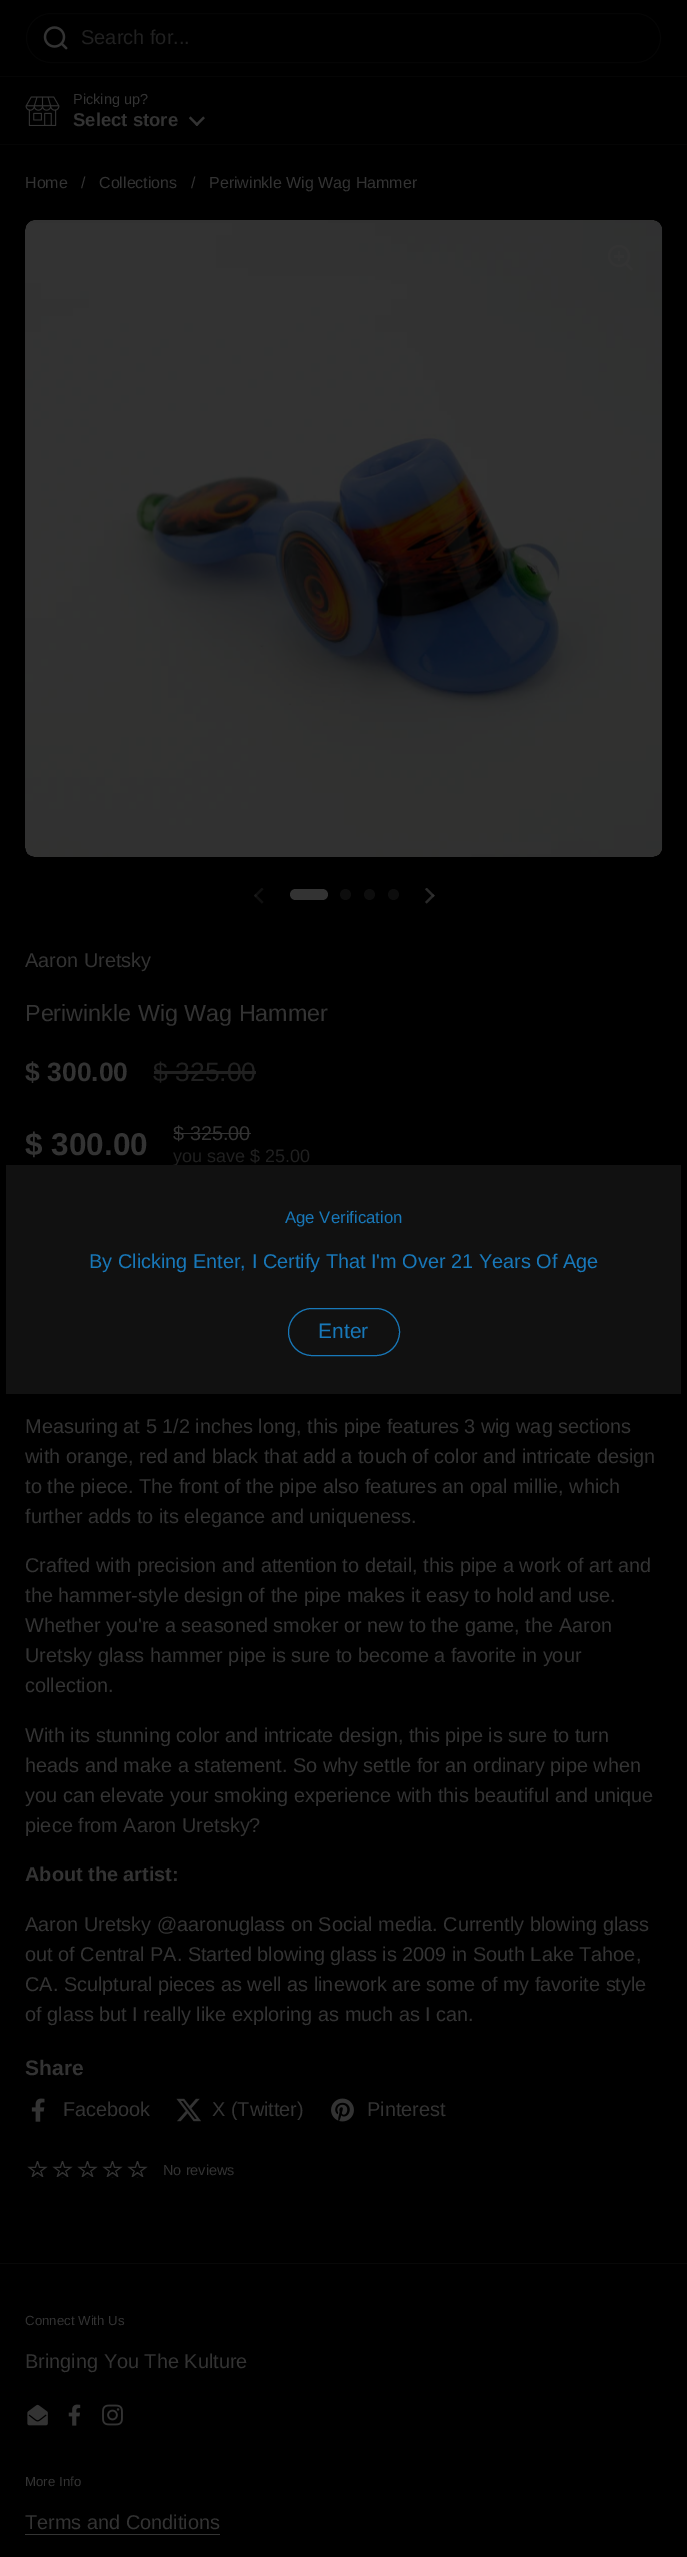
%!PS-Adobe-3.0
%%BoundingBox: 0 0 687 2557
%%LanguageLevel: 3
%%Pages: 1
%%EndComments
%%BeginProlog
/f { fill } bind def
/S { stroke } bind def
/fn { [ exch dup neg 0 0 3 -1 roll 0 0 ] selectfont } def
/tx { moveto show } def
/bx { rectfill } def
/ci { newpath 0 360 arc closepath } def
/rr { 5 dict begin { /r /h /w /y /x } { exch def } forall
  x r add y moveto x w add y 2 copy h add r arct x w add y h add x 1 index r arct
  x y h add x y r arct x y 2 copy exch w add exch r arct closepath end } def
/im { 5 dict begin { /h /w /y /x /name } { exch def } forall
  gsave x y translate w h scale
  w h 8 [w 0 0 h 0 0] name (r) file false 3 colorimage grestore end } def
%%EndProlog
%%BeginSetup
<< /PageSize [687 2557] >> setpagedevice
%%EndSetup
%%Page: 1 1
0 2557 translate 1 -1 scale
4 setmiterlimit
0 setgray
0 0 687 2557 bx
0.02 setgray
0 76 687 1 bx
26.5 13.5 634 49 24.5 rr S
(image0.raw) 43 26 25 24 im
/LiberationSans-Regular 20 fn
0.125 setgray
(Search for...) 81 44 tx
0.02 setgray
0 144 687 1 bx
(image1.raw) 25 96 35 30 im
/LiberationSans-Regular 14.5 fn
0.2 setgray
(Picking up?) 73 104 tx
/LiberationSans-Bold 18.5 fn
(Select store) 73 126 tx
(image2.raw) 189 116 16 10 im
/LiberationSans-Regular 16 fn
(Home) 25 188 tx
(/) 81 188 tx
(Collections) 99 188 tx
(/) 191 188 tx
(Periwinkle Wig Wag Hammer) 209 188 tx
(image3.raw) 25 220 638 637 im
(image4.raw) 608 245 25 26 im
(image5.raw) 254 888 10 16 im
290 889 38 11 5.5 rr f
0.051 setgray
345.5 894.5 5.5 ci f
369.5 894.5 5.5 ci f
393.5 894.5 5.5 ci f
(image6.raw) 425 888 10 16 im
/LiberationSans-Regular 19.9 fn
0.2 setgray
(Aaron Uretsky) 25 967 tx
/LiberationSans-Regular 23.3 fn
(Periwinkle Wig Wag Hammer) 25 1021 tx
/LiberationSans-Bold 26.5 fn
($ 300.00) 25 1081 tx
/LiberationSans-Regular 26.5 fn
0.125 setgray
($ 325.00) 153 1081 tx
154 1071 102 3 bx
/LiberationSans-Bold 31.5 fn
0.2 setgray
($ 300.00) 25 1155 tx
/LiberationSans-Regular 19.9 fn
($ 325.00) 173 1140 tx
174 1133 77 1 bx
/LiberationSans-Regular 18 fn
0.125 setgray
(you save $ 25.00) 173 1162 tx
/LiberationSans-Regular 19.9 fn
0.2 setgray
(Measuring at 5 1/2 inches long, this pipe features 3 wig wag sections) 25 1433 tx
(with orange, red and black that add a touch of color and intricate design) 25 1463 tx
(to the piece. The front of the pipe also features an opal millie, which) 25 1493 tx
(further adds to its elegance and uniqueness.) 25 1523 tx
(Crafted with precision and attention to detail, this pipe a work of art and) 25 1572 tx
(the hammer-style design of the pipe makes it easy to hold and use.) 25 1602 tx
(Whether you're a seasoned smoker or new to the game, the Aaron) 25 1632 tx
(Uretsky glass hammer pipe is sure to become a favorite in your) 25 1662 tx
(collection.) 25 1692 tx
(With its stunning color and intricate design, this pipe is sure to turn) 25 1742 tx
(heads and make a statement. So why settle for an ordinary pipe when) 25 1772 tx
(you can elevate your smoking experience with this beautiful and unique) 25 1802 tx
(piece from Aaron Uretsky?) 25 1832 tx
/LiberationSans-Bold 19.9 fn
(About the artist:) 25 1881 tx
/LiberationSans-Regular 19.9 fn
(Aaron Uretsky @aaronuglass on Social media. Currently blowing glass) 25 1931 tx
(out of Central PA. Started blowing glass is 2009 in South Lake Tahoe,) 25 1961 tx
(CA. Sculptural pieces as well as linework are some of my favorite style) 25 1991 tx
(of glass but I really like exploring as much as I can.) 25 2021 tx
/LiberationSans-Bold 21 fn
(Share) 25 2075 tx
(image7.raw) 31 2098 14 24 im
/LiberationSans-Regular 19.9 fn
(Facebook) 63 2116 tx
(image8.raw) 176 2098 25 24 im
(X \(Twitter\)) 212 2116 tx
(image9.raw) 331 2098 23 24 im
(Pinterest) 367 2116 tx
(image10.raw) 27 2161 121 17 im
/LiberationSans-Regular 14.5 fn
(No reviews) 163 2175 tx
0.067 setgray
6 1165 675 229 bx
/LiberationSans-Regular 16.75 fn
0.094 0.471 0.725 setrgbcolor
(Age Verification) 285 1223 tx
/LiberationSans-Regular 19.9 fn
(By Clicking Enter, I Certify That I'm Over 21 Years Of Age) 89 1268 tx
288.5 1308.5 111 47 23.5 rr S
/LiberationSans-Regular 21 fn
(Enter) 318 1338 tx
0.031 setgray
0 2263 687 1 bx
/LiberationSans-Regular 13.25 fn
0.2 setgray
(Connect With Us) 25 2325 tx
/LiberationSans-Regular 19.9 fn
(Bringing You The Kulture) 25 2368 tx
(image11.raw) 27 2404 21 22 im
(image12.raw) 68 2404 13 22 im
(image13.raw) 102 2404 21 22 im
/LiberationSans-Regular 13.25 fn
(More Info) 25 2486 tx
/LiberationSans-Regular 19.9 fn
(Terms and Conditions) 25 2529 tx
25 2534 195 1 bx
showpage
%%EOF
